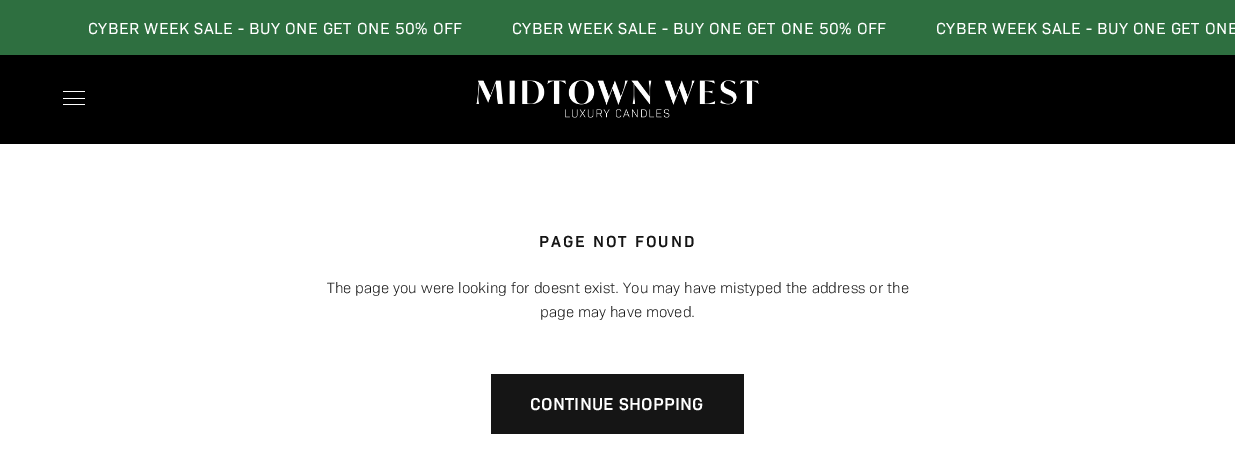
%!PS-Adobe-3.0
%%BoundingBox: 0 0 1235 459
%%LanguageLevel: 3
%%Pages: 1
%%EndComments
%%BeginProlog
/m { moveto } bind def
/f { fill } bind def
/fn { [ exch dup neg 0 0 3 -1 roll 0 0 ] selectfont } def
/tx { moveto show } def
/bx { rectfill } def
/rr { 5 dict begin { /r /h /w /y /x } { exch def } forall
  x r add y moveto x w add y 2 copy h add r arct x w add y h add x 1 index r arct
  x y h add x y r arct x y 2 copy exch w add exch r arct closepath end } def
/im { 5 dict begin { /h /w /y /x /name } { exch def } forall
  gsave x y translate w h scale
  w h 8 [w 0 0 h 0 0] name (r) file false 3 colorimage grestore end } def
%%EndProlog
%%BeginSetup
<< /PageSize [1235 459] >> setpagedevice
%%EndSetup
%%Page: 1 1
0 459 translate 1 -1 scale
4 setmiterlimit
1 setgray
0 0 1235 459 bx
0.18 0.435 0.251 setrgbcolor
0 0 1235 55 bx
/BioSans-Regular 16.25 fn
1 setgray
88 34 m 0.5 0 (CYBER WEEK SALE - BUY ONE GET ONE 50% OFF) ashow
512 34 m 0.5 0 (CYBER WEEK SALE - BUY ONE GET ONE 50% OFF) ashow
936 34 m 0.5 0 (CYBER WEEK SALE - BUY ONE GET ONE) ashow
0 setgray
0 55 1235 89 bx
1 setgray
63 91 22 1 0.5 rr f
63 98 22 1 0.5 rr f
63 104 22 1 0.5 rr f
(image0.raw) 476 80 283 38 im
/BioSans-SemiBold 16.25 fn
0.082 setgray
539 247 m 2 0 (PAGE NOT FOUND) ashow
/BioSans-Light 15 fn
(The page you were looking for doesnt exist. You may have mistyped the address or the) 327 293 tx
(page may have moved.) 540 317 tx
491 374 253 60 bx
/BioSans-SemiBold 17.5 fn
1 setgray
530 410 m 0.3 0 (CONTINUE SHOPPING) ashow
showpage
%%EOF
